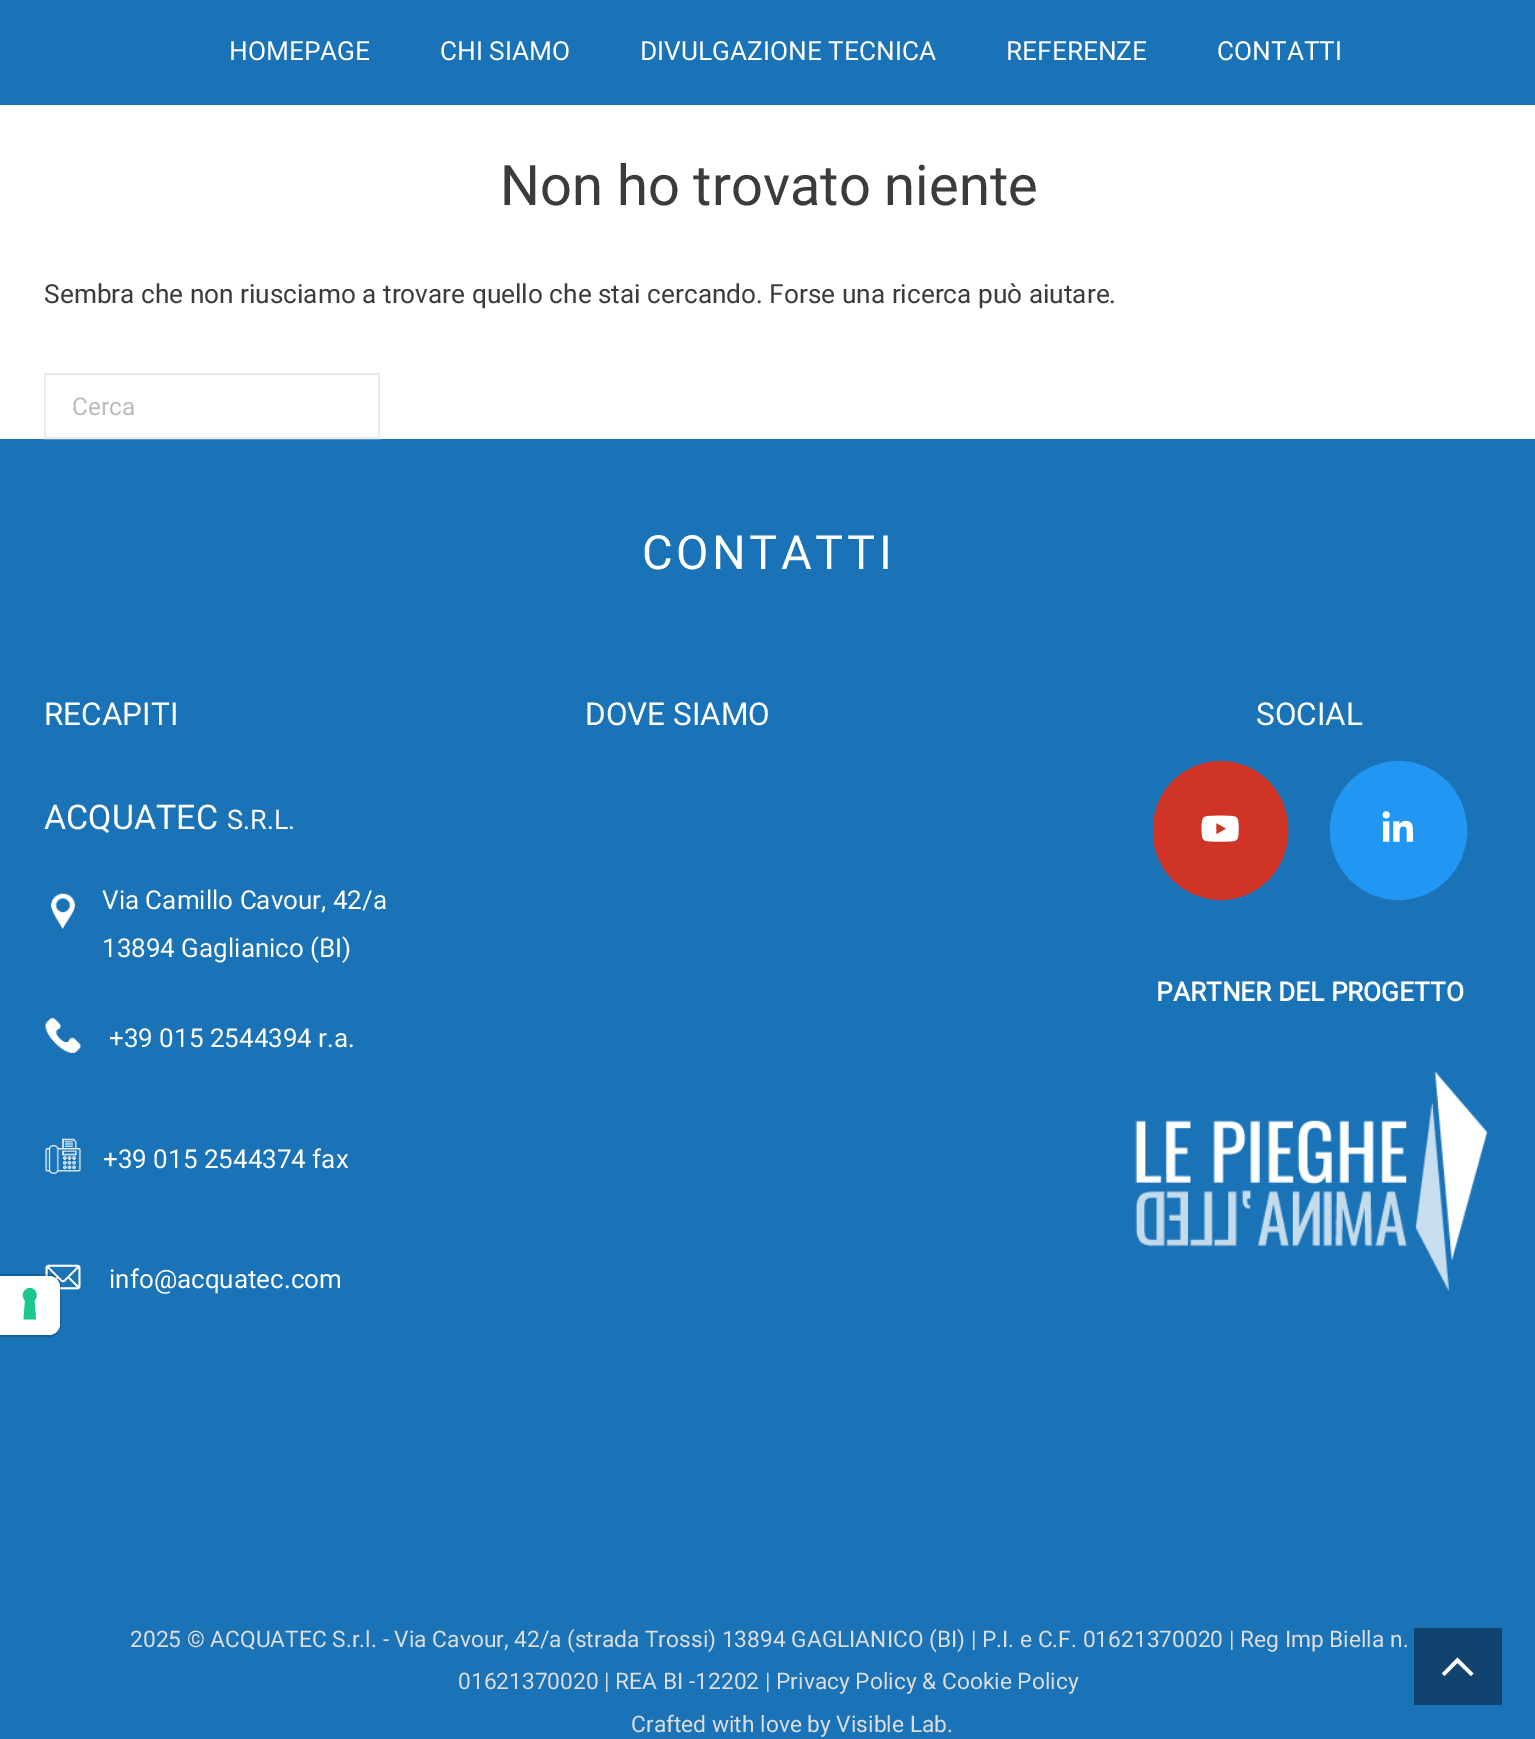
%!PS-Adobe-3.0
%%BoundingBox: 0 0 1535 1739
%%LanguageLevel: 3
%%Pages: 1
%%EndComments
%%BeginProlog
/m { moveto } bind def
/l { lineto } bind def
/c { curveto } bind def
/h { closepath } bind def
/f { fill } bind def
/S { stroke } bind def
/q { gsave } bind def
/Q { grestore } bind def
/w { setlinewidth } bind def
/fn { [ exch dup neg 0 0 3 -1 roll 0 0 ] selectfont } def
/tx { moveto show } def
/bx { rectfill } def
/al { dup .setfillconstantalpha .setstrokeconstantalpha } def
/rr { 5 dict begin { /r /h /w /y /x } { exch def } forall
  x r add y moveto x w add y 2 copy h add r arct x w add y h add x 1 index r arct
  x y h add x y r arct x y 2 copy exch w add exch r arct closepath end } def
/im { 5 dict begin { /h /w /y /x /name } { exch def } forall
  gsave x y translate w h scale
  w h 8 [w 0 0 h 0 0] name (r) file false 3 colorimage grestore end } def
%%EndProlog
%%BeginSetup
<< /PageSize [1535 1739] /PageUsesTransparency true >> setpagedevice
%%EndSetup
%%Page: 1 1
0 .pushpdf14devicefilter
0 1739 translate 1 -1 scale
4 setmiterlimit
1 setgray
0 0 1535 1739 bx
0.102 0.447 0.718 setrgbcolor
0 439 1535 1300 bx
(image3.raw) 45 1264 36 26 im
0.15 al
0 setgray
2 w
-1 1275 m 49 1275 l 55 1275 60 1280 60 1286 c 60 1325 l 60 1331 55 1336 49 1336 c -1 1336 l h S
1 al
1 setgray
0 1276 m 49 1276 l 55 1276 60 1281 60 1287 c 60 1324 l 60 1330 55 1335 49 1335 c 0 1335 l h f
0.11 0.776 0.569 setrgbcolor
30 1288 m 36 1288 39 1296 34.5 1300.5 c 36 1319.5 l 23.5 1319.5 l 25 1300.5 l 20.5 1296 23.5 1288 30 1288 c h eofill
0.102 0.447 0.718 setrgbcolor
0 0 1535 105 bx
/Roboto-Regular 26.25 fn
1 setgray
(HOMEPAGE) 229 60 tx
(CHI SIAMO) 440 60 tx
(DIVULGAZIONE TECNICA) 640 60 tx
(REFERENZE) 1006 60 tx
(CONTATTI) 1217 60 tx
/Roboto-Regular 56 fn
0.231 setgray
(Non ho trovato niente) 500 205 tx
/Roboto-Regular 26.25 fn
(Sembra che non riusciamo a trovare quello che stai cercando. Forse una ricerca può aiutare.) 44 303 tx
0.922 setgray
45 374 334 64 rectstroke
/Roboto-Regular 24.5 fn
0.733 setgray
(Cerca) 72 415 tx
/Roboto-Regular 47.25 fn
1 setgray
642 569 m 3.5 0 (CONTATTI) ashow
/Roboto-Regular 31.5 fn
(RECAPITI) 44 725 tx
/Roboto-Regular 34 fn
(ACQUATEC) 44 829 tx
/Roboto-Regular 27 fn
(S.R.L.) 227 829 tx
(image0.raw) 51 893 24 36 im
/Roboto-Regular 26 fn
(Via Camillo Cavour, 42/a) 102 909 tx
(13894 Gaglianico \(BI\)) 102 957 tx
(image1.raw) 45 1018 36 35 im
(+39 015 2544394 r.a.) 109 1047 tx
(image2.raw) 45 1138 36 36 im
(+39 015 2544374 fax) 103 1168 tx
(info@acquatec.com) 109 1288 tx
/Roboto-Regular 31.5 fn
(DOVE SIAMO) 585 725 tx
(SOCIAL) 1256 725 tx
0.812 0.204 0.153 setrgbcolor
1154 762 133 137 66.5 rr q f Q
S
(image4.raw) 1201 815 38 27 im
0.129 0.588 0.953 setrgbcolor
1331 762 135 137 67.5 rr q f Q
S
(image5.raw) 1382 811 32 31 im
/Roboto-Bold 26.25 fn
1 setgray
(PARTNER DEL PROGETTO) 1156 1001 tx
(image6.raw) 1135 1072 353 219 im
/Roboto-Regular 22.75 fn
0.867 setgray
(2025 © ACQUATEC S.r.l. - Via Cavour, 42/a \(strada Trossi\) 13894 GAGLIANICO \(BI\) | P.I. e C.F. 01621370020 | Reg Imp Biella n.) 130 1647 tx
(01621370020 | REA BI -12202 |) 458 1689 tx
(Privacy Policy & Cookie Policy) 776 1689 tx
(Crafted with love by Visible Lab.) 631 1732 tx
0.063 0.267 0.431 setrgbcolor
1414 1628 88 77 bx
1 setgray
1471 1676 m 1457.5 1663 l 1444.5 1676 l 1442 1673.5 l 1457.5 1657.5 l 1473.5 1673.5 l h f
.poppdf14devicefilter showpage
%%EOF
